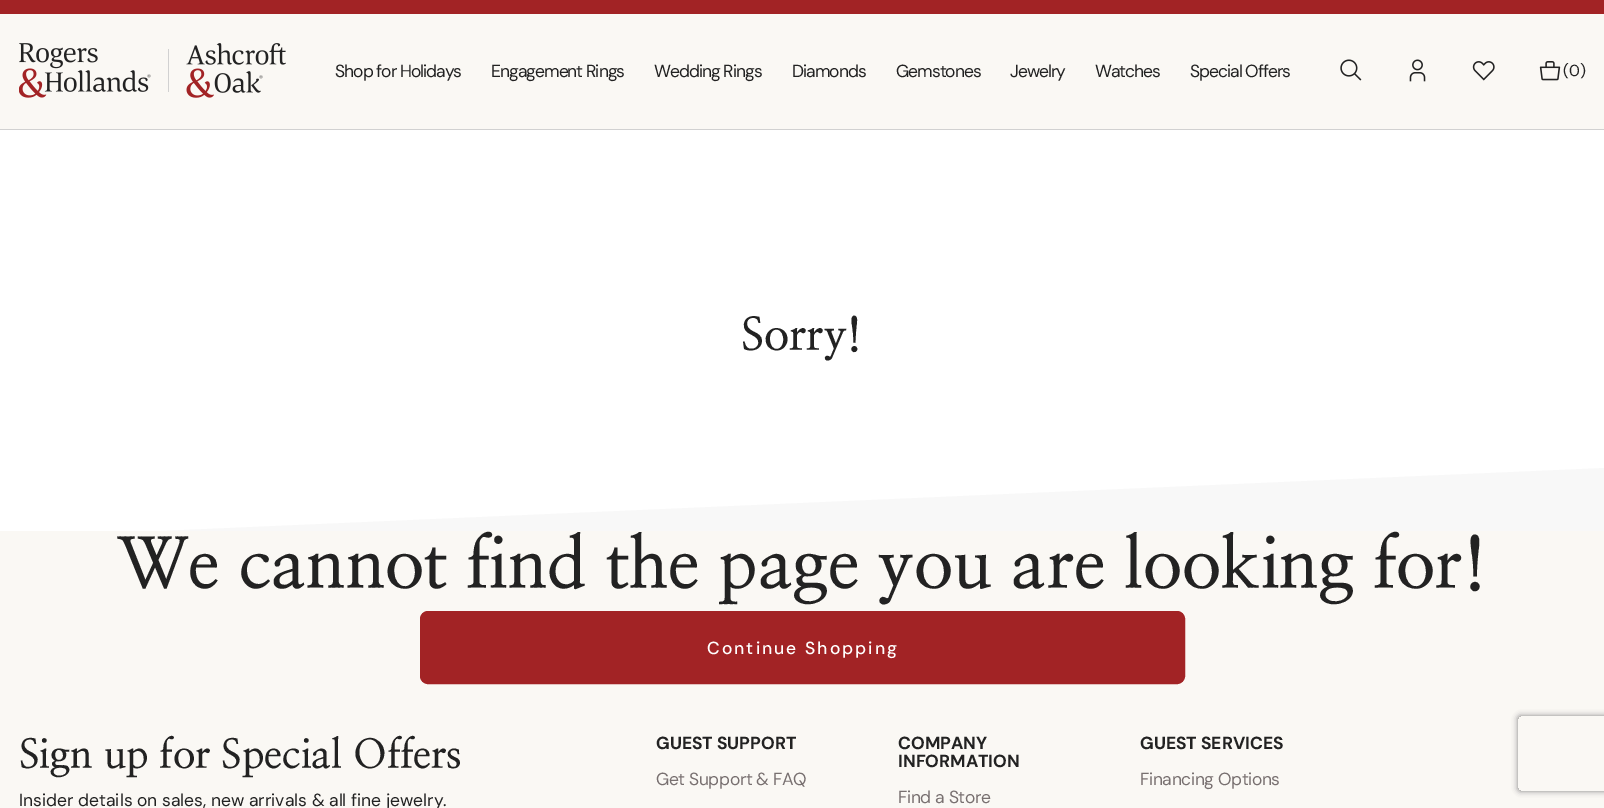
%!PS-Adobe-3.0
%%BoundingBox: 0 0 1604 808
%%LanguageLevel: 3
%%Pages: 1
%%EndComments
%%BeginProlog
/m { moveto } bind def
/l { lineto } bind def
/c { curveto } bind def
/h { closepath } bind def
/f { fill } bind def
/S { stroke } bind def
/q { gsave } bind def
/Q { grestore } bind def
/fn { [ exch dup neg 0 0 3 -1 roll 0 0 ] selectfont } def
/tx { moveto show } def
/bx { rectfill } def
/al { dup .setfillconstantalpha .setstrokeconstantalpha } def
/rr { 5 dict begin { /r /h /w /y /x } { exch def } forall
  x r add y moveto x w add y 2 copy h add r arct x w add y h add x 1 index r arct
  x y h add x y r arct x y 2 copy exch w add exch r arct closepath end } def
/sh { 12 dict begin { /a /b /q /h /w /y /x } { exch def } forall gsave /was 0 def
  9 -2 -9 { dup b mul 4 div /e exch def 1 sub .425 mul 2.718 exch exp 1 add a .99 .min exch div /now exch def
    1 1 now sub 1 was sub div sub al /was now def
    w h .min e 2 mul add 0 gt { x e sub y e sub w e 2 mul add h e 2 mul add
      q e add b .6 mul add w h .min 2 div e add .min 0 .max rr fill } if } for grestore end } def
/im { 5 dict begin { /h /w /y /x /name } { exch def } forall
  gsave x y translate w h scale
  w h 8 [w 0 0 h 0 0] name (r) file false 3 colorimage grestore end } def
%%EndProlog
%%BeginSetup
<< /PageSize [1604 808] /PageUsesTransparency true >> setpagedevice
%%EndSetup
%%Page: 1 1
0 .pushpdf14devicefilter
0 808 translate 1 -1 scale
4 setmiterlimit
0.98 0.973 0.957 setrgbcolor
0 0 1604 808 bx
0.82 setgray
0 129 1604 1 bx
0.635 0.137 0.145 setrgbcolor
0 0 1604 14 bx
(image0.raw) 19 43 267 55 im
/DMSans-Regular 17.5 fn
0.133 setgray
335 77 m -1 0 (Shop for Holidays) ashow
491 77 m -1 0 (Engagement Rings) ashow
654 77 m -1 0 (Wedding Rings) ashow
792 77 m -1 0 (Diamonds) ashow
896 77 m -1 0 (Gemstones) ashow
1010 77 m -1 0 (Jewelry) ashow
1095 77 m -1 0 (Watches) ashow
1190 77 m -1 0 (Special Offers) ashow
(image1.raw) 1340 59 22 22 im
(image2.raw) 1409 59 17 23 im
(image3.raw) 1472 61 23 20 im
(image4.raw) 1539 61 22 20 im
/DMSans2-Regular 16 fn
(\(0\)) 1563 76 tx
1 setgray
0 130 1604 401 bx
/NanumMyeongjo-Bold 45 fn
0.133 setgray
(Sorry!) 741 350 tx
0.973 setgray
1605 531 m 161 531 l 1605 468 l h f
/NanumMyeongjo-Bold 70 fn
0.133 setgray
(We cannot find the page you are looking for!) 117 588 tx
0.635 0.137 0.145 setrgbcolor
420.5 611.5 764 72 7.5 rr q f Q
S
/DMSans-Medium 17.5 fn
1 setgray
707 654 m 2 0 (Continue Shopping) ashow
/NanumMyeongjo-Bold 40 fn
0.133 setgray
(Sign up for Special Offers) 19 768 tx
/DMSans-Regular 17.5 fn
(Insider details on sales, new arrivals & all fine jewelry.) 19 806 tx
/DMSans-Bold 17.5 fn
(GUEST SUPPORT) 656 749 tx
/DMSans-Regular 17.5 fn
0.471 0.439 0.439 setrgbcolor
656 785 m -0.4 0 (Get Support & FAQ) ashow
/DMSans-Bold 17.5 fn
0.133 setgray
(COMPANY) 898 749 tx
(INFORMATION) 898 767 tx
/DMSans-Regular 17.5 fn
0.471 0.439 0.439 setrgbcolor
898 803 m -0.4 0 (Find a Store) ashow
/DMSans-Bold 17.5 fn
0.133 setgray
(GUEST SERVICES) 1140 749 tx
/DMSans-Regular 17.5 fn
0.471 0.439 0.439 setrgbcolor
1140 785 m -0.4 0 (Financing Options) ashow
q
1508 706 m 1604 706 l 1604 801 l 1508 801 l h 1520.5 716 m 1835.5 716 l 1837 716 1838 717 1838 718.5 c 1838 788.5 l 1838 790 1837 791 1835.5 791 c 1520.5 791 l 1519 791 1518 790 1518 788.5 c 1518 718.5 l 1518 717 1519 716 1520.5 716 c h eoclip newpath
0.502 setgray
1518 716 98 75 2.5 3 1 sh
Q
.poppdf14devicefilter showpage
%%EOF
